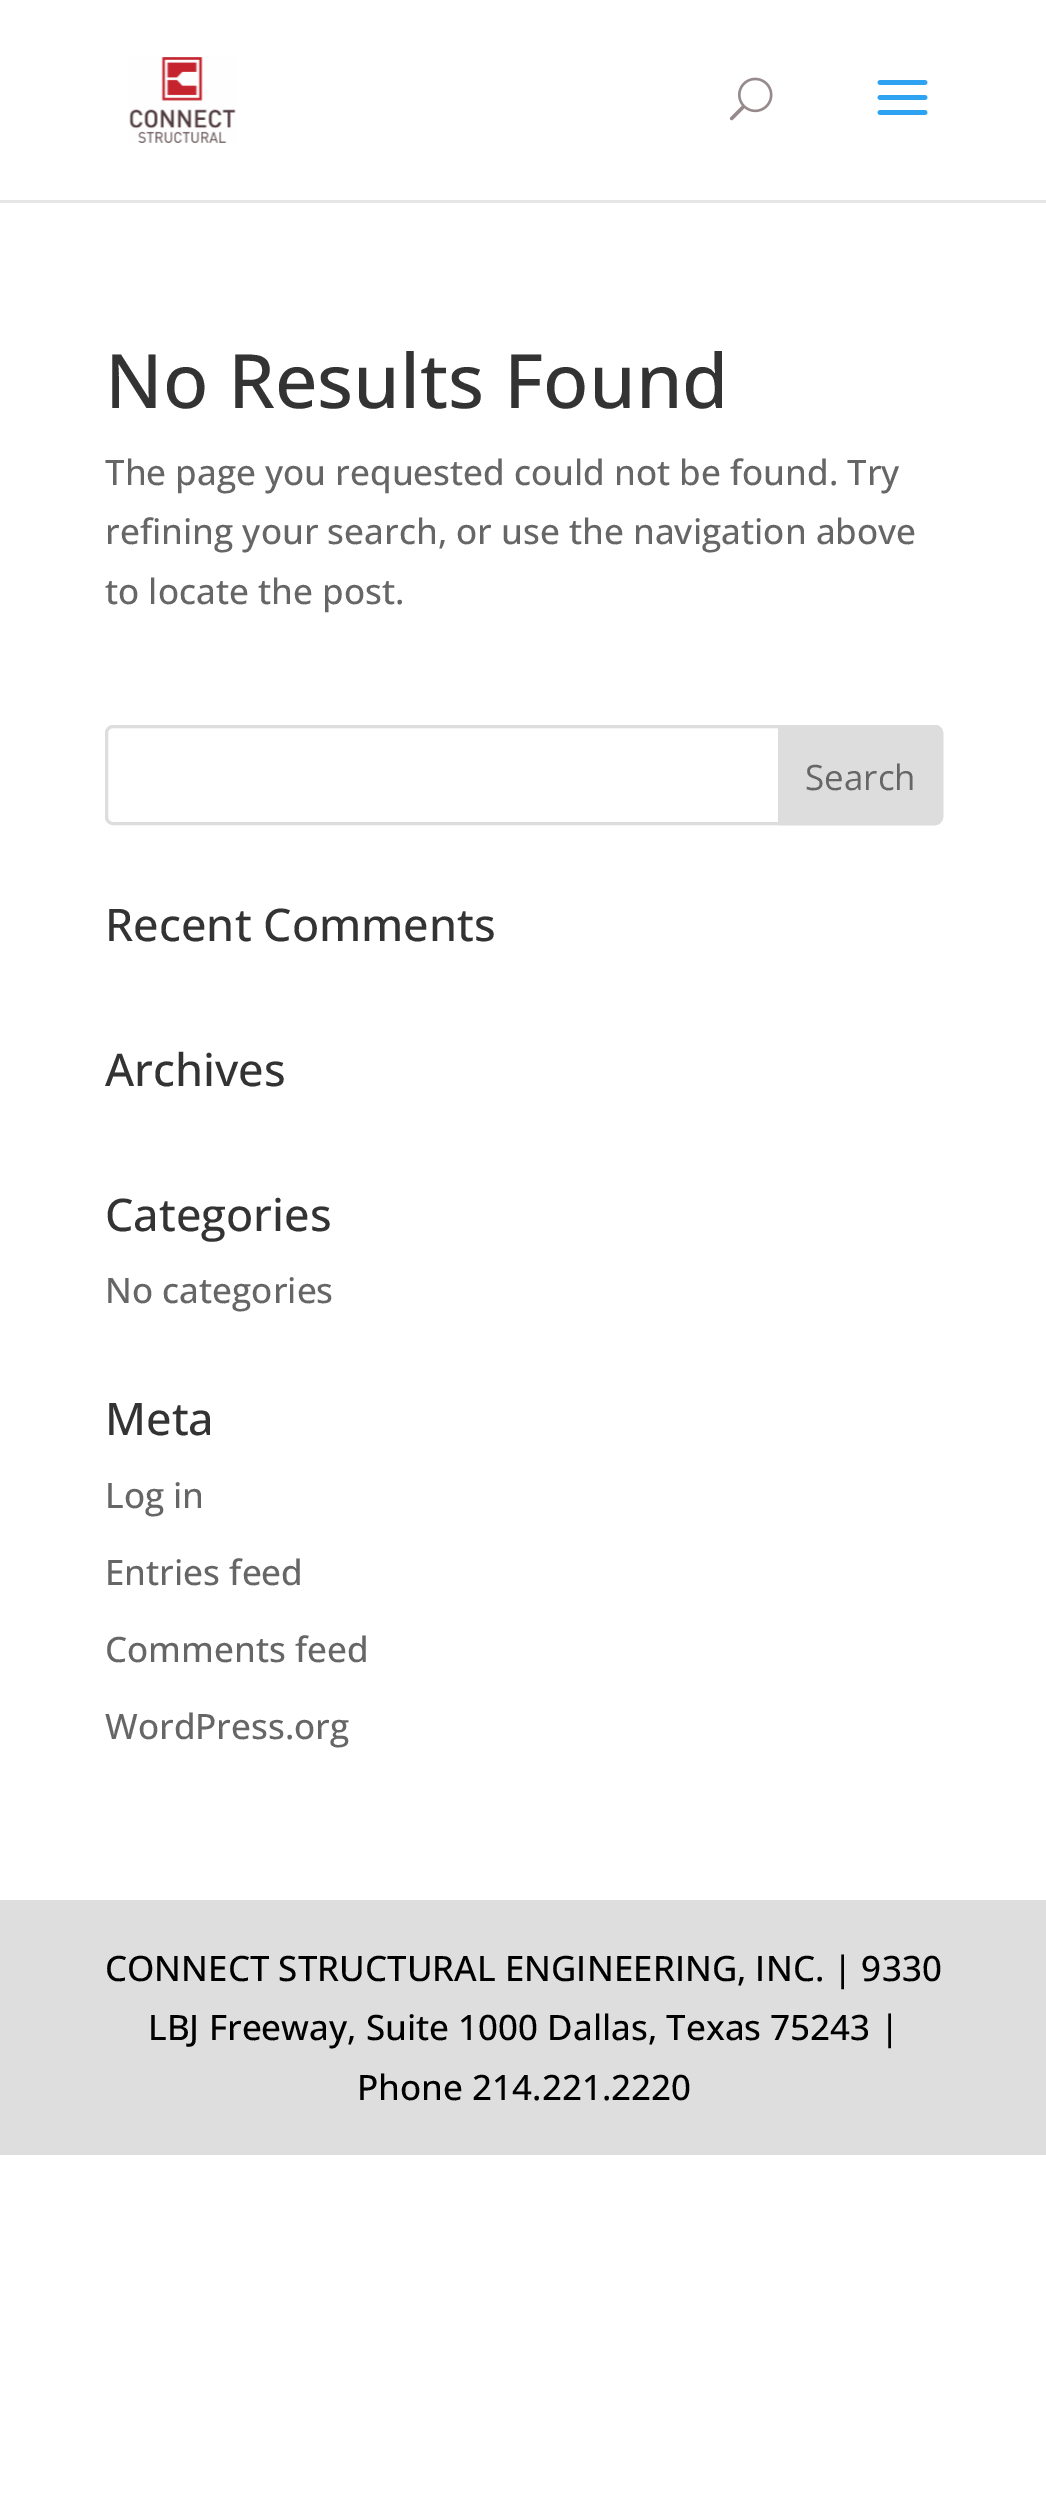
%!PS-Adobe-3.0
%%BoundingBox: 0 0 1046 2515
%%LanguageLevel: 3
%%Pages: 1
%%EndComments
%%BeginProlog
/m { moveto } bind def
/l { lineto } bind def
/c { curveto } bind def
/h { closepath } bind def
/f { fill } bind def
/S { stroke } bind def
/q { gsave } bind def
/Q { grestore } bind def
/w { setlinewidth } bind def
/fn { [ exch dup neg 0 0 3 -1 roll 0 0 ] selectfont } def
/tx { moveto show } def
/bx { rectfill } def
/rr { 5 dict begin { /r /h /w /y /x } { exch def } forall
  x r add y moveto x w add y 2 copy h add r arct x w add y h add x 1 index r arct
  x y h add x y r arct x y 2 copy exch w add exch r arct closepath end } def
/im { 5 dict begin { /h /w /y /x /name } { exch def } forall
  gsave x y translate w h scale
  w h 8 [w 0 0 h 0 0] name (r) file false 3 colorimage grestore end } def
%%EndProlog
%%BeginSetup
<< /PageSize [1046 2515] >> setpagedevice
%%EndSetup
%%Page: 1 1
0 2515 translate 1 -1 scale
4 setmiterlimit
1 setgray
0 0 1046 2515 bx
0.902 setgray
0 200 m 0 203 l 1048 203 l 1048 3 l 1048 200 l h f
(image0.raw) 129 57 107 86 im
(image1.raw) 729 77 44 44 im
(image2.raw) 877 80 51 35 im
/OpenSans-Medium 75 fn
0.2 setgray
(No Results Found) 105 408 tx
/OpenSans-Medium 35 fn
0.4 setgray
(The page you requested could not be found. Try) 105 485 tx
(refining your search, or use the navigation above) 105 544 tx
(to locate the post.) 105 604 tx
0.867 setgray
3 w
106.5 726.5 835 97 6.5 rr S
779.5 726.5 m 935 726.5 l 938.5 726.5 941.5 729.5 941.5 733 c 941.5 817 l 941.5 820.5 938.5 823.5 935 823.5 c 779.5 823.5 l h q f Q
S
/OpenSans-Regular 35 fn
0.4 setgray
(Search) 805 790 tx
/OpenSans-Medium 45 fn
0.2 setgray
(Recent Comments) 105 941 tx
(Archives) 105 1086 tx
(Categories) 105 1231 tx
/OpenSans-Medium 35 fn
0.4 setgray
(No categories) 105 1303 tx
/OpenSans-Medium 45 fn
0.2 setgray
(Meta) 105 1435 tx
/OpenSans-Medium 35 fn
0.4 setgray
(Log in) 105 1508 tx
(Entries feed) 105 1585 tx
(Comments feed) 105 1662 tx
(WordPress.org) 105 1739 tx
0.871 setgray
0 1900 1046 255 bx
0 setgray
(CONNECT STRUCTURAL ENGINEERING, INC. | 9330) 105 1981 tx
(LBJ Freeway, Suite 1000 Dallas, Texas 75243 |) 148 2040 tx
(Phone 214.221.2220) 357 2100 tx
showpage
%%EOF
